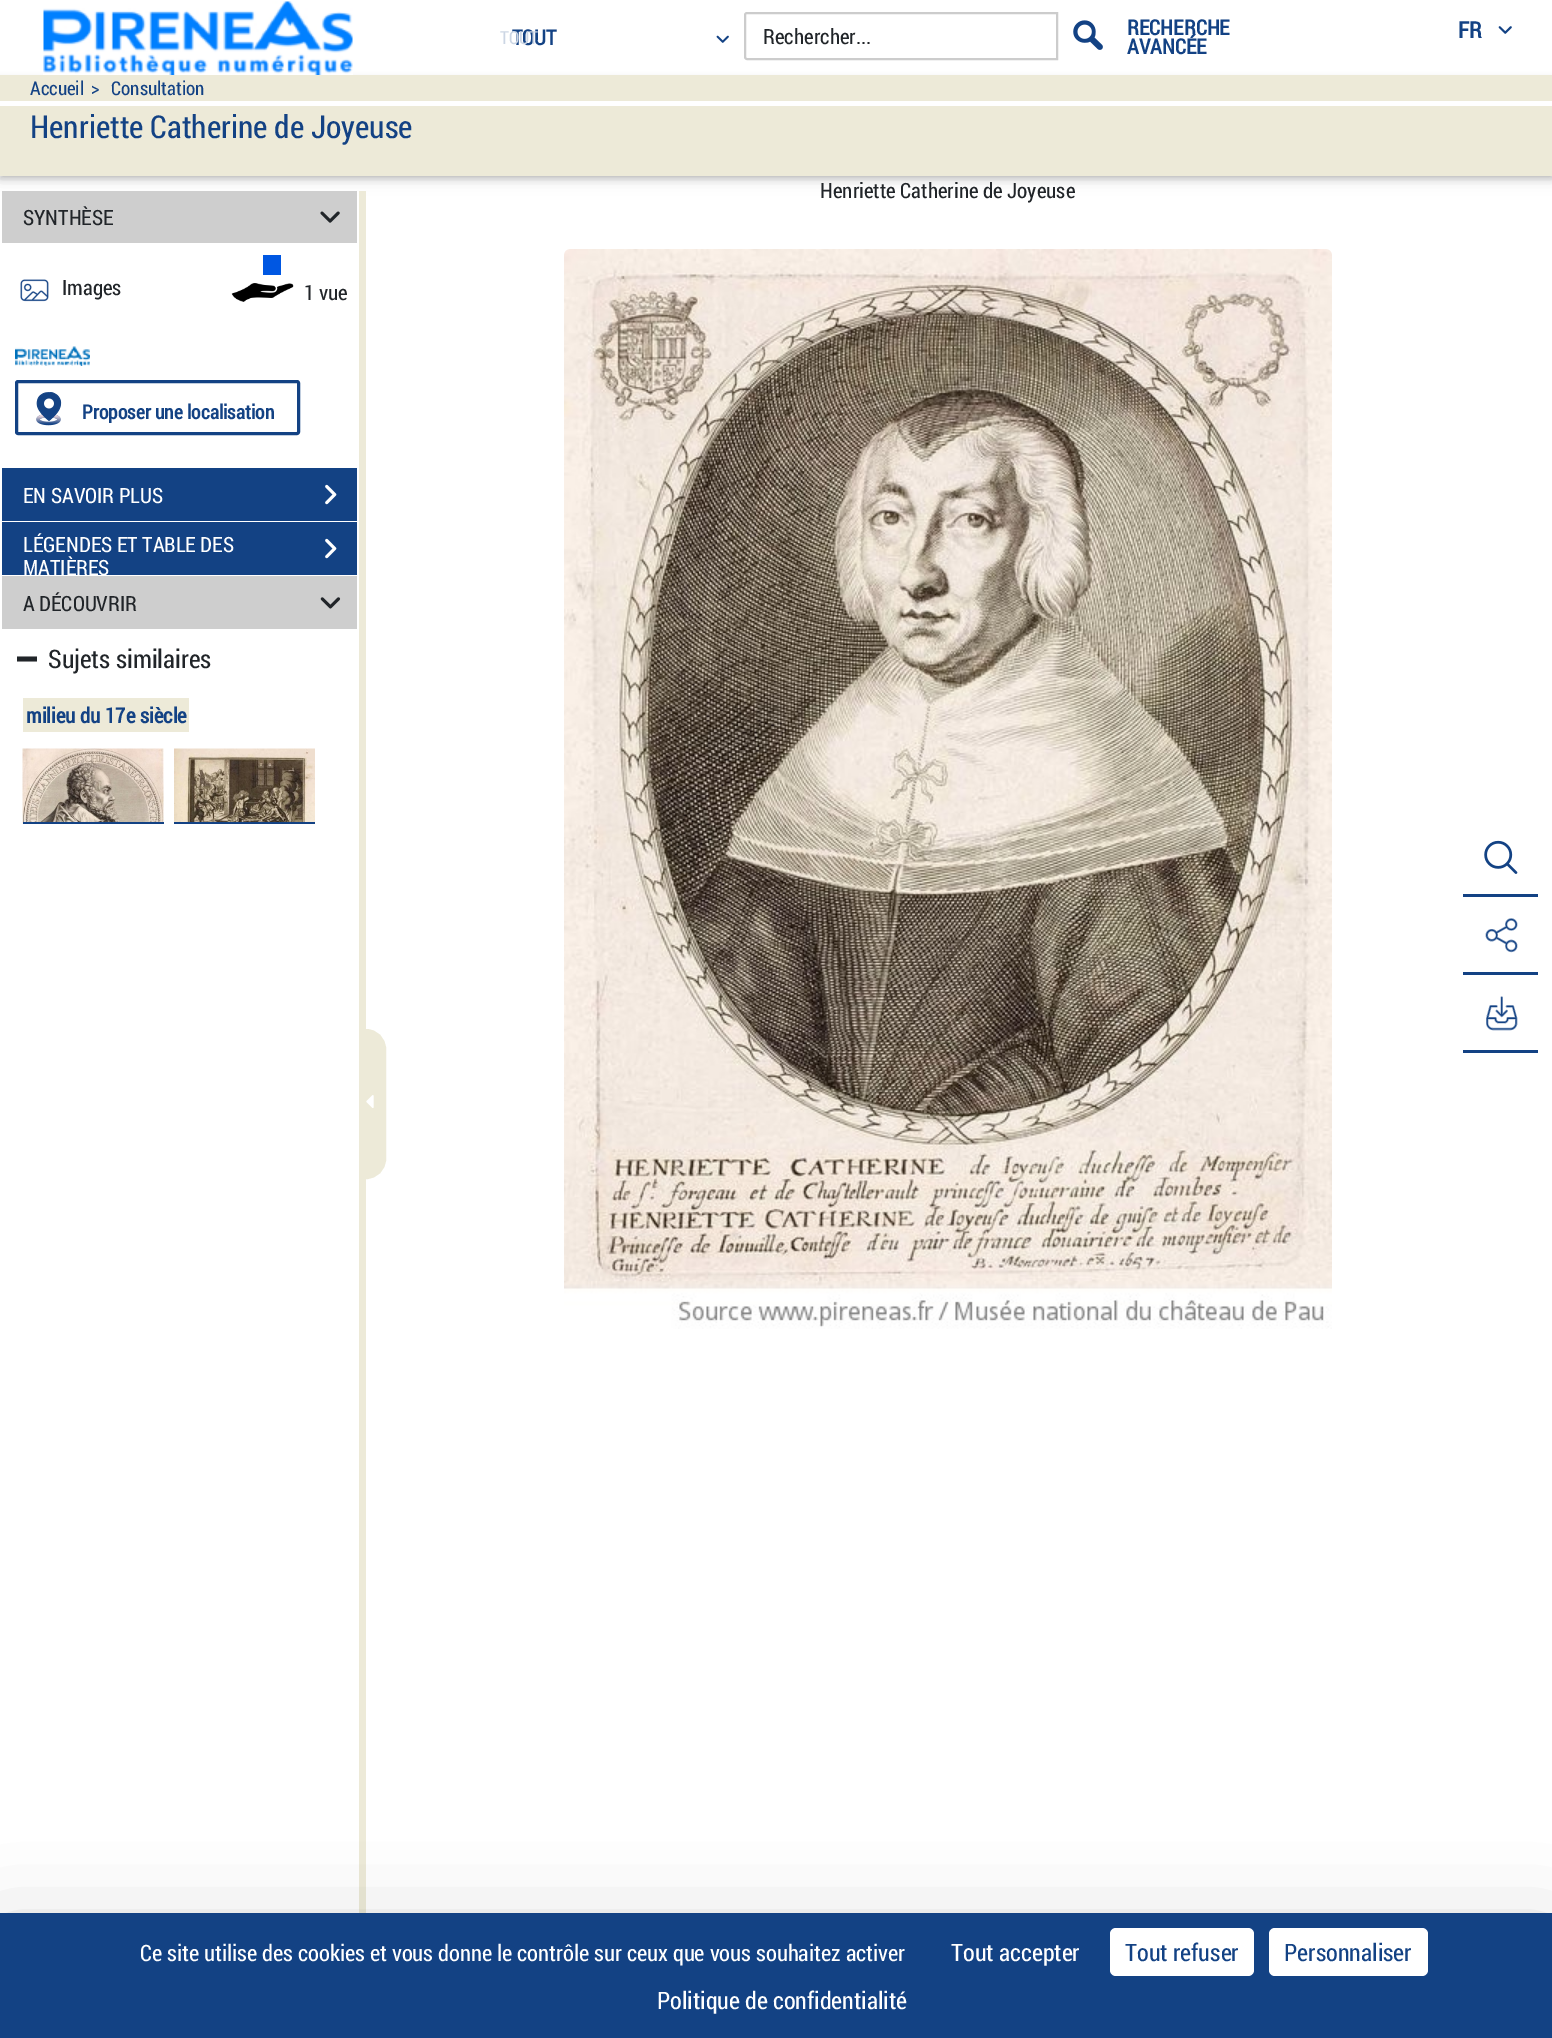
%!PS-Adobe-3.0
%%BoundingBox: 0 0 1552 2038
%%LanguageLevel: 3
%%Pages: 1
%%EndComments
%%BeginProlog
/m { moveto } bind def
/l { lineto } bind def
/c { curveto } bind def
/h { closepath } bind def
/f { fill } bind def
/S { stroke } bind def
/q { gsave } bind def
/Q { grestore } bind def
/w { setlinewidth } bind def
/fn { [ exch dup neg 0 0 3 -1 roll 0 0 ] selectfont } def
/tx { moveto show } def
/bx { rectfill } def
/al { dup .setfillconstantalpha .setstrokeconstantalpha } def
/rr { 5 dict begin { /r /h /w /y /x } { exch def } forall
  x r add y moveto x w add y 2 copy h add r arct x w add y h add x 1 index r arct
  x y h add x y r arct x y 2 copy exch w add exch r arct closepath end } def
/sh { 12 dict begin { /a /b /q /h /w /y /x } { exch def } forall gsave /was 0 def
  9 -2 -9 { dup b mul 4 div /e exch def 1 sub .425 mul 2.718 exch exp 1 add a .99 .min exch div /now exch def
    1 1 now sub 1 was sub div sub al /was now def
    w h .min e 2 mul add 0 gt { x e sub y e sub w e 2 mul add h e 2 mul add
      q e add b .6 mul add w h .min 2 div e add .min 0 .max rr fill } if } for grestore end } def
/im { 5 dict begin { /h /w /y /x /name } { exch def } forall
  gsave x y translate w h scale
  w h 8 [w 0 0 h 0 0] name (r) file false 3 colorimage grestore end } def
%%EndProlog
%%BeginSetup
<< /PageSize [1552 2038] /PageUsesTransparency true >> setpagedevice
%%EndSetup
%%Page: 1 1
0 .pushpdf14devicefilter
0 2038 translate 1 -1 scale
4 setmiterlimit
1 setgray
0 0 1552 2038 bx
q
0 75 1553 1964 rectclip
0 setgray
0 78 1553 101 0 7.5 0.12 sh
Q
0 setgray
0 78 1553 101 0 3 0.16 sh
(image0.raw) 43 1 310 74 im
/RobotoCondensed-Bold 21 fn
0.075 0.259 0.518 setrgbcolor
(TOUT) 512 45 tx
(image1.raw) 716 35 13 8 im
/RobotoCondensed-Regular 18 fn
0.8 0.839 0.894 setrgbcolor
(TOUT) 500 44 tx
0.8 setgray
2 w
747 13 m 1057 13 l 1057 59 l 747 59 l 746 59 745 58 745 57 c 745 15 l 745 14 746 13 747 13 c h S
/RobotoCondensed-Regular 21 fn
0.129 0.145 0.161 setrgbcolor
(Rechercher...) 763 44 tx
(image2.raw) 1073 20 30 30 im
/RobotoCondensed-Bold 21 fn
0.075 0.259 0.518 setrgbcolor
(RECHERCHE) 1127 35 tx
(AVANCÉE) 1127 54 tx
/RobotoCondensed-Bold 22.5 fn
(FR) 1458 38 tx
(image3.raw) 1498 26 14 8 im
0.929 0.918 0.847 setrgbcolor
0 75 1552 101 bx
1 setgray
0 101 1552 5 bx
/RobotoCondensed-Regular 19 fn
0.075 0.259 0.518 setrgbcolor
(Accueil) 30 95 tx
(>) 91 95 tx
(Consultation) 111 95 tx
/RobotoCondensed-Regular 31.5 fn
(Henriette Catherine de Joyeuse) 30 138 tx
/RobotoCondensed-Regular 21 fn
0.129 0.145 0.161 setrgbcolor
(Henriette Catherine de Joyeuse) 820 198 tx
(image4.raw) 564 249 768 1080 im
(image5.raw) 1484 840 34 34 im
0.075 0.259 0.518 setrgbcolor
1463 894 75 3 bx
(image6.raw) 1485 918 33 35 im
1463 972 75 3 bx
(image7.raw) 1486 996 32 35 im
1463 1050 75 3 bx
0.929 0.918 0.847 setrgbcolor
359 191 7 1722 bx
0.808 setgray
2 191 355 52 bx
0.129 0.145 0.161 setrgbcolor
(SYNTHÈSE) 23 225 tx
(image8.raw) 320 211 20 12 im
(image9.raw) 20 279 29 23 im
(Images) 62 295 tx
0 0.341 0.886 setrgbcolor
263 255 18 20 bx
(image10.raw) 231 283 63 19 im
0.129 0.145 0.161 setrgbcolor
(1 vue) 304 300 tx
(image11.raw) 15 346 75 20 im
0.075 0.259 0.518 setrgbcolor
3 w
16.5 381.5 282 52 1.5 rr S
(image12.raw) 36 392 26 34 im
/RobotoCondensed-Bold 19.5 fn
(Proposer une localisation) 82 419 tx
2 468 355 53 bx
/RobotoCondensed-Regular 21 fn
1 setgray
(EN SAVOIR PLUS) 23 503 tx
(image13.raw) 325 484 12 21 im
0.075 0.259 0.518 setrgbcolor
2 522 355 53 bx
1 setgray
(LÉGENDES ET TABLE DES) 23 552 tx
(image13.raw) 325 538 12 21 im
(MATIÈRES) 23 575 tx
0.808 setgray
2 576 355 53 bx
0.129 0.145 0.161 setrgbcolor
(A DÉCOUVRIR) 23 611 tx
(image14.raw) 320 597 21 12 im
/RobotoCondensed-Regular 25.5 fn
(Sujets similaires) 48 668 tx
24.5 661.5 m 17 661.5 l 17 656.5 l 37 656.5 l 37 661.5 l h f
0.929 0.918 0.847 setrgbcolor
23 698 166 34 bx
/RobotoCondensed-Bold 21 fn
0.075 0.259 0.518 setrgbcolor
(milieu du 17e siècle) 26 723 tx
(image15.raw) 22 748 142 76 im
23 822 141 2 bx
(image16.raw) 174 748 141 74 im
174 822 141 2 bx
0.929 0.918 0.847 setrgbcolor
367 1030 m 366 1030 l 376.5 1030 385 1038.5 385 1049 c 385 1159 l 385 1169.5 376.5 1178 366 1178 c 367 1178 l h q f Q
2 w
S
(image17.raw) 366 1095 8 13 im
0 setgray
0 1943 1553 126 0 45 0.25 sh
0.075 0.259 0.518 setrgbcolor
0 1913 1552 125 bx
/RobotoCondensed-Regular 22.5 fn
1 setgray
(Ce site utilise des cookies et vous donne le contrôle sur ceux que vous souhaitez activer) 140 1961 tx
/RobotoCondensed-Regular 24 fn
(Tout accepter) 951 1961 tx
1110 1928 144 48 6 rr f
0.075 0.259 0.518 setrgbcolor
(Tout refuser) 1125 1961 tx
1 setgray
1269 1928 159 48 6 rr f
0.075 0.259 0.518 setrgbcolor
(Personnaliser) 1284 1961 tx
1 setgray
(Politique de confidentialité) 657 2009 tx
.poppdf14devicefilter showpage
%%EOF
